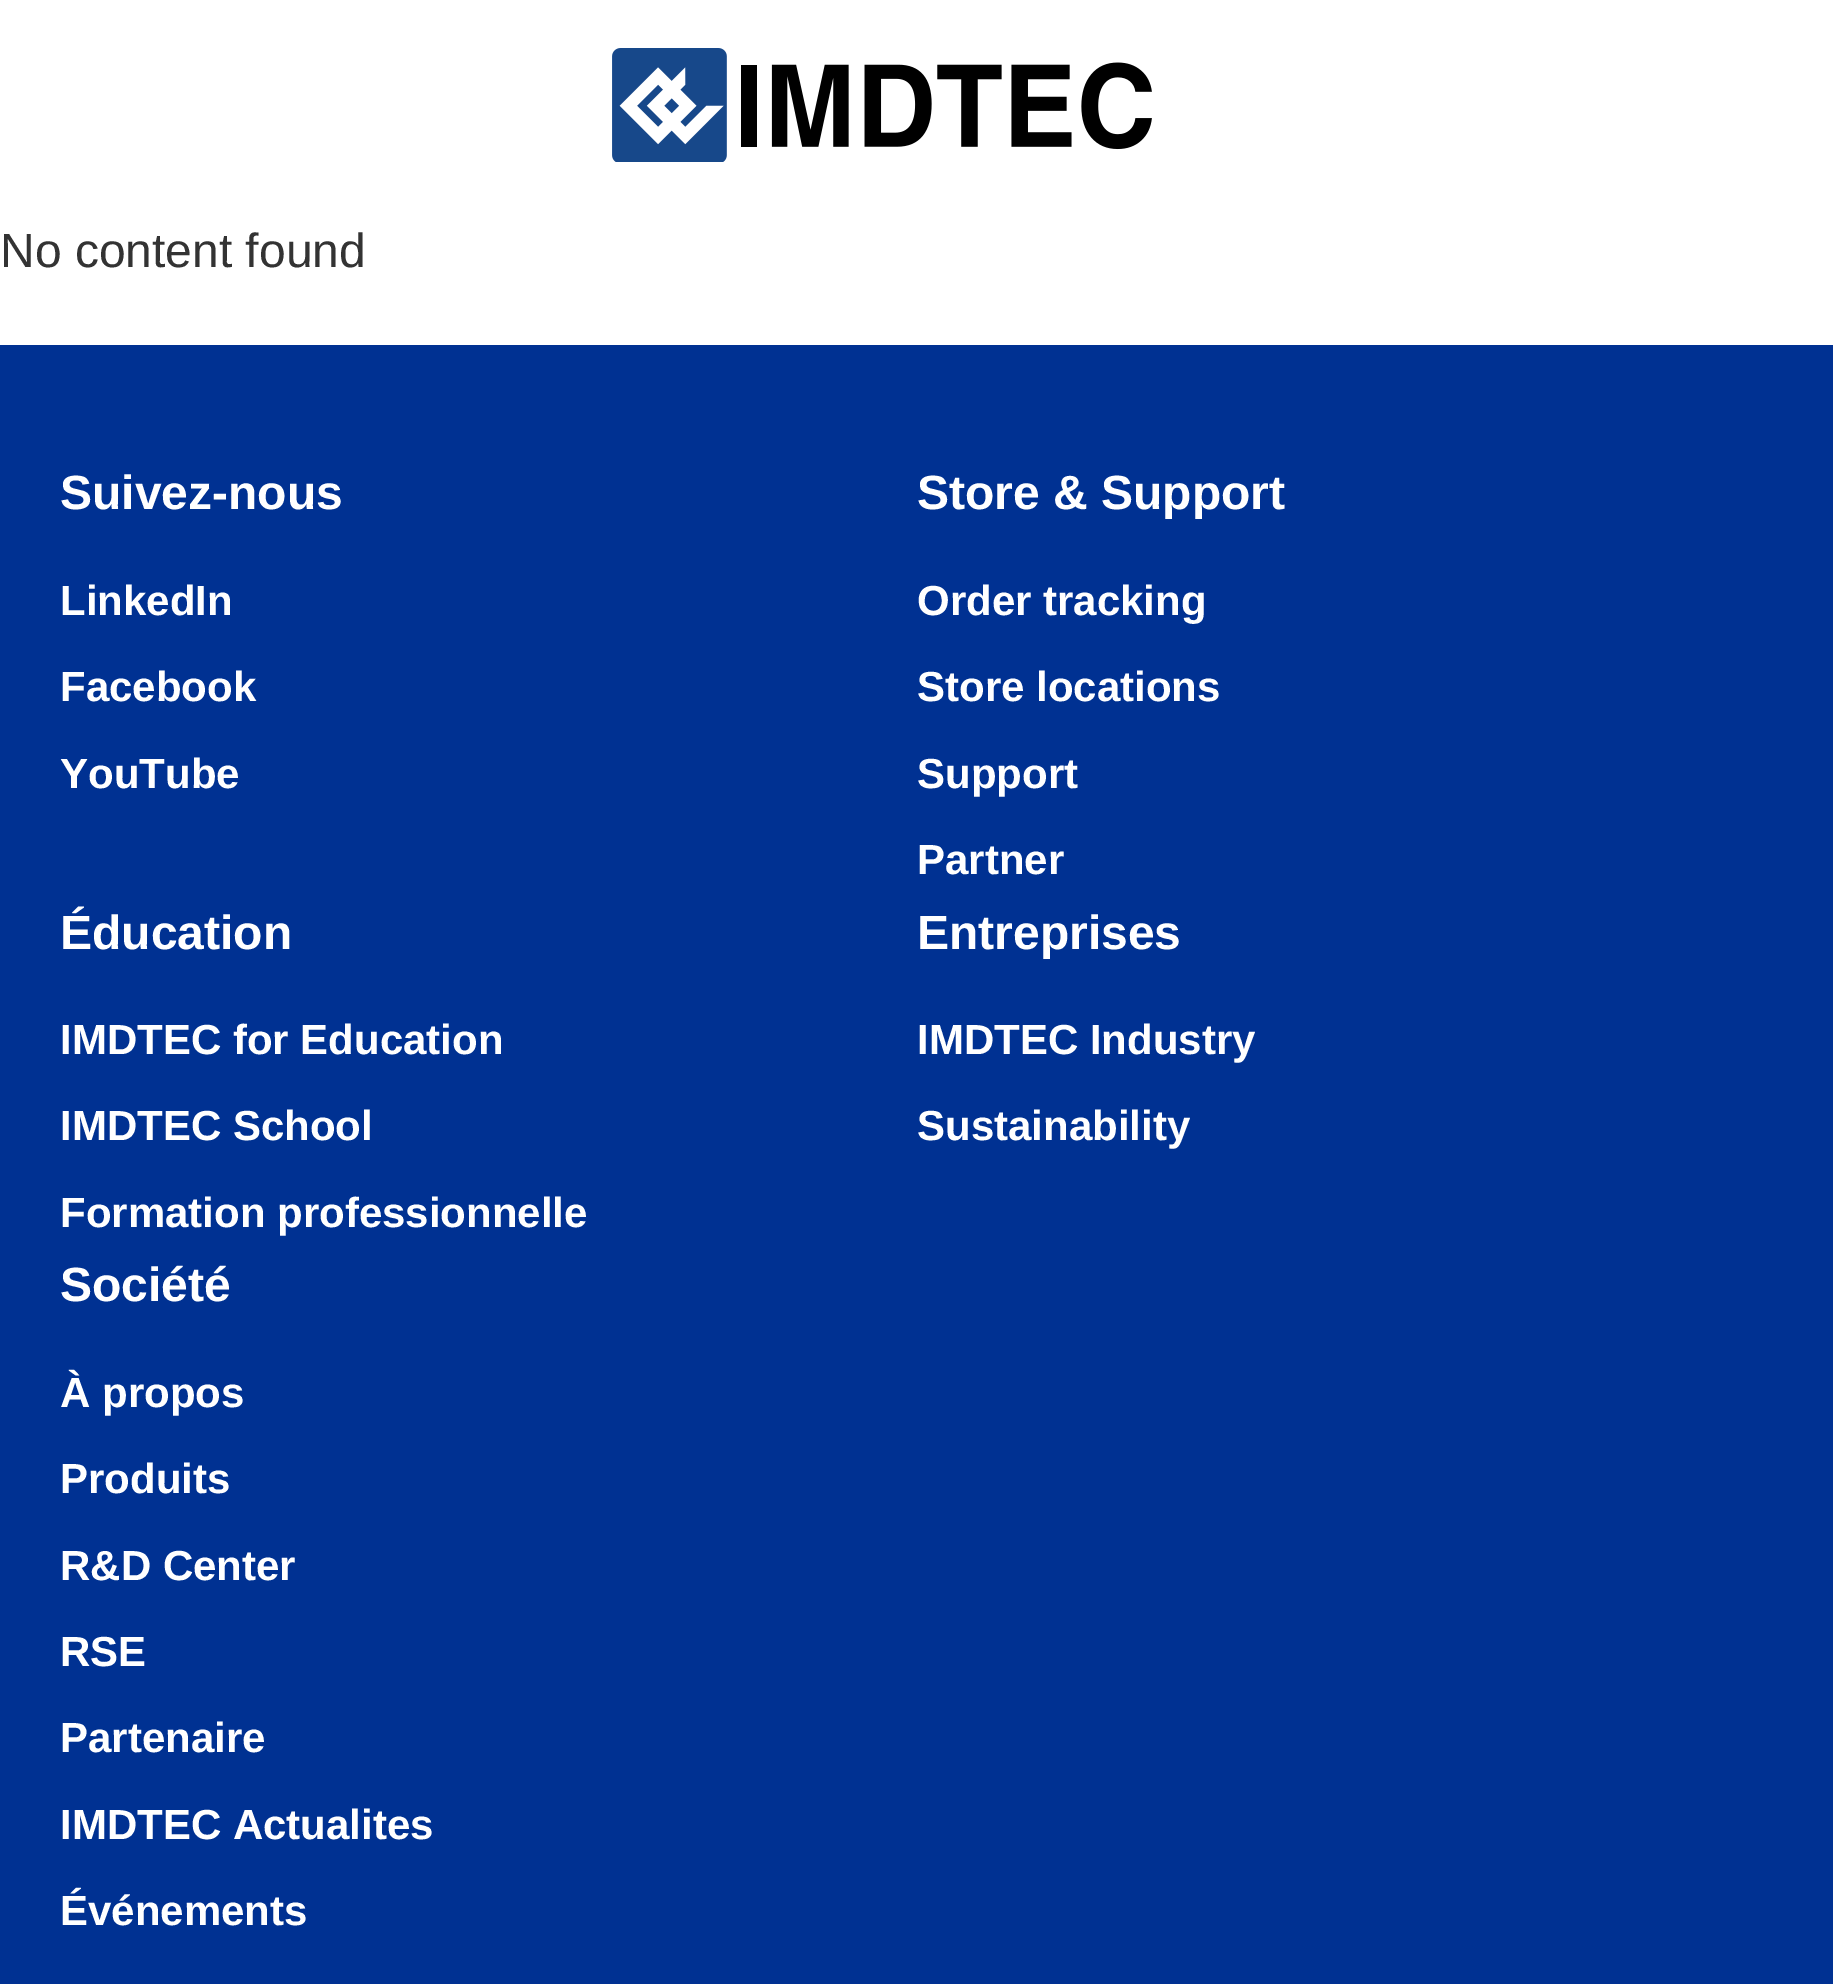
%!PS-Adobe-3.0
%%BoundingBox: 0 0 1833 1984
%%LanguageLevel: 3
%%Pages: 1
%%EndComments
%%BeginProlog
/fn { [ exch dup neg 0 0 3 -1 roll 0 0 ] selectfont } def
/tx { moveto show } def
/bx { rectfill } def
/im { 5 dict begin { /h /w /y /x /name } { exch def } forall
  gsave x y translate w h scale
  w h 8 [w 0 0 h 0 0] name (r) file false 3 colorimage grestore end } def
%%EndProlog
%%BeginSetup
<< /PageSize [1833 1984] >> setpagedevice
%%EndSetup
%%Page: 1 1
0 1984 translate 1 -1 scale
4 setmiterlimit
1 setgray
0 0 1833 1984 bx
(image0.raw) 612 48 540 114 im
/LiberationSans-Regular 48 fn
0.2 setgray
(No content found) 0 267 tx
0 0.192 0.573 setrgbcolor
0 345 1833 1639 bx
/LiberationSans-Bold 48 fn
1 setgray
(Suivez-nous) 60 509 tx
/LiberationSans-Bold 42 fn
(LinkedIn) 60 615 tx
(Facebook) 60 701 tx
(YouTube) 60 788 tx
/LiberationSans-Bold 48 fn
(Store & Support) 917 509 tx
/LiberationSans-Bold 42 fn
(Order tracking) 917 615 tx
(Store locations) 917 701 tx
(Support) 917 788 tx
(Partner) 917 874 tx
/LiberationSans-Bold 48 fn
(Éducation) 60 949 tx
/LiberationSans-Bold 42 fn
(IMDTEC for Education) 60 1054 tx
(IMDTEC School) 60 1140 tx
(Formation professionnelle) 60 1227 tx
/LiberationSans-Bold 48 fn
(Entreprises) 917 949 tx
/LiberationSans-Bold 42 fn
(IMDTEC Industry) 917 1054 tx
(Sustainability) 917 1140 tx
/LiberationSans-Bold 48 fn
(Société) 60 1301 tx
/LiberationSans-Bold 42 fn
(À propos) 60 1407 tx
(Produits) 60 1493 tx
(R&D Center) 60 1580 tx
(RSE) 60 1666 tx
(Partenaire) 60 1752 tx
(IMDTEC Actualites) 60 1839 tx
(Événements) 60 1925 tx
showpage
%%EOF
